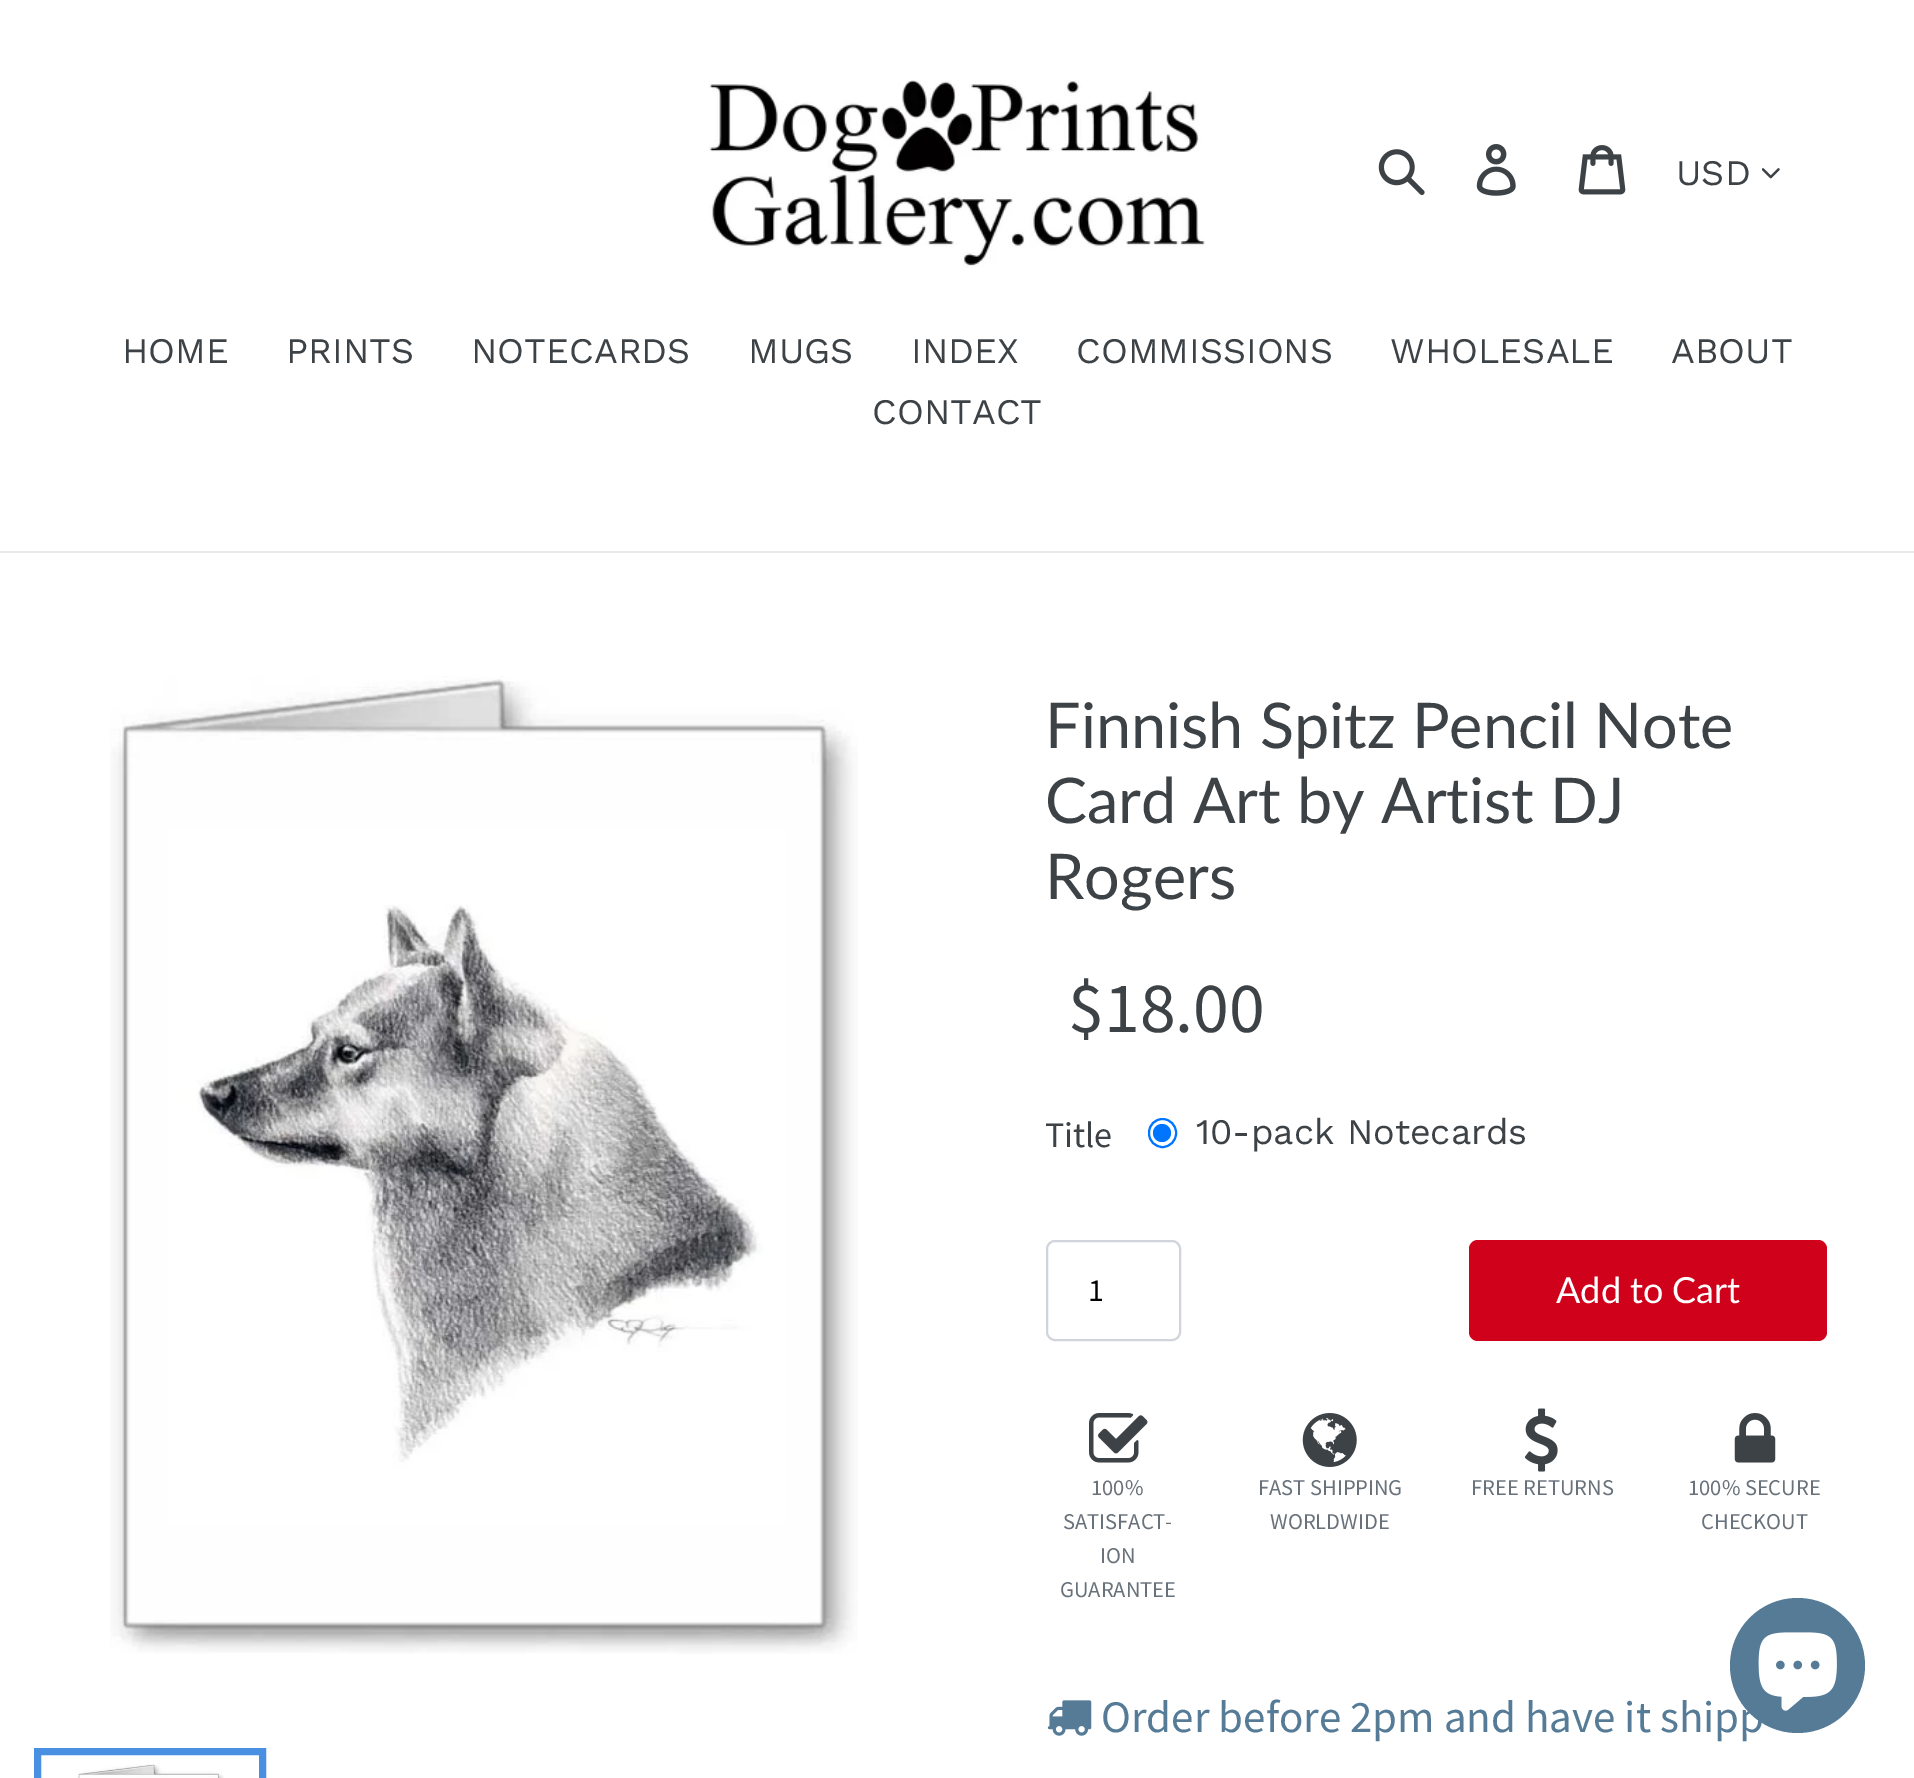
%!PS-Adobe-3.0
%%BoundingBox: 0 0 1914 1778
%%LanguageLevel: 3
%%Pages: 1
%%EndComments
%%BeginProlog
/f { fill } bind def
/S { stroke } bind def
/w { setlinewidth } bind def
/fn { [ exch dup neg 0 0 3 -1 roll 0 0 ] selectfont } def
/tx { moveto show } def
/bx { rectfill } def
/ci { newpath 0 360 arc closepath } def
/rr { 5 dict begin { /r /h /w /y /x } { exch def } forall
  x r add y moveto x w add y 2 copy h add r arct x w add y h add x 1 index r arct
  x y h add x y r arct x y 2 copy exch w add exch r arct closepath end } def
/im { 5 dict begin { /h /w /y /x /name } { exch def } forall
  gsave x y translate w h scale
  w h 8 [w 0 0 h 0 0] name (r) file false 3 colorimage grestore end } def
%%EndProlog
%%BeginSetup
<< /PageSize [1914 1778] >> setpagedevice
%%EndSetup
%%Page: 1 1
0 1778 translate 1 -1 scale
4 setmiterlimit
1 setgray
0 0 1914 1778 bx
(image0.raw) 709 80 496 188 im
(image1.raw) 1378 149 47 47 im
(image2.raw) 1476 144 40 52 im
(image3.raw) 1578 145 48 50 im
/WorkSans-Regular 36 fn
0.239 0.259 0.275 setrgbcolor
(USD) 1676 185 tx
(image4.raw) 1762 168 18 11 im
0.91 0.914 0.922 setrgbcolor
0 551 1914 2 bx
0.239 0.259 0.275 setrgbcolor
(HOME) 122 363 tx
(PRINTS) 286 363 tx
(NOTECARDS) 471 363 tx
(MUGS) 748 363 tx
(INDEX) 911 363 tx
(COMMISSIONS) 1076 363 tx
(WHOLESALE) 1390 363 tx
(ABOUT) 1671 363 tx
(CONTACT) 872 424 tx
(image5.raw) 110 676 748 978 im
0.29 0.565 0.886 setrgbcolor
7 w
37.5 1751.5 225 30 rectstroke
(image6.raw) 77 1764 147 14 im
/Lato-Regular 63 fn
0.239 0.259 0.275 setrgbcolor
(Finnish Spitz Pencil Note) 1045 748 tx
(Card Art by Artist DJ) 1045 823 tx
(Rogers) 1045 899 tx
/SourceSansPro-Regular 72 fn
($18.00) 1068 1032 tx
/SourceSansPro-Regular 36 fn
(Title) 1045 1147 tx
0 0.459 1 setrgbcolor
2 w
1149 1119 27 28 13.5 rr S
1162 1133 9 ci f
/WorkSans-Regular 36 fn
0.239 0.259 0.275 setrgbcolor
(10-pack Notecards) 1196 1144 tx
0.82 0.835 0.859 setrgbcolor
1047 1241 133 99 8 rr S
/SourceSansPro-Regular 32 fn
0 setgray
(1) 1088 1301 tx
0.816 0.008 0.106 setrgbcolor
1469 1240 358 101 9 rr f
/Lato-Regular 36 fn
1 setgray
(Add to Cart) 1556 1303 tx
(image7.raw) 1089 1413 59 50 im
/SourceSansPro-Regular 22.5 fn
0.412 0.447 0.482 setrgbcolor
(100%) 1091 1495 tx
(SATISFACT-) 1063 1529 tx
(ION) 1100 1563 tx
(GUARANTEE) 1060 1597 tx
(image8.raw) 1302 1413 55 54 im
(FAST SHIPPING) 1258 1495 tx
(WORLDWIDE) 1270 1529 tx
(image9.raw) 1524 1408 34 64 im
(FREE RETURNS) 1471 1495 tx
(image10.raw) 1734 1413 42 50 im
(100% SECURE) 1688 1495 tx
(CHECKOUT) 1701 1529 tx
(image11.raw) 1047 1700 45 36 im
/SourceSansPro-Regular 45 fn
0.333 0.482 0.592 setrgbcolor
(Order before 2pm and have it shipp) 1101 1732 tx
1797.5 1665.5 67.5 ci f
(image12.raw) 1758 1632 79 79 im
showpage
%%EOF
